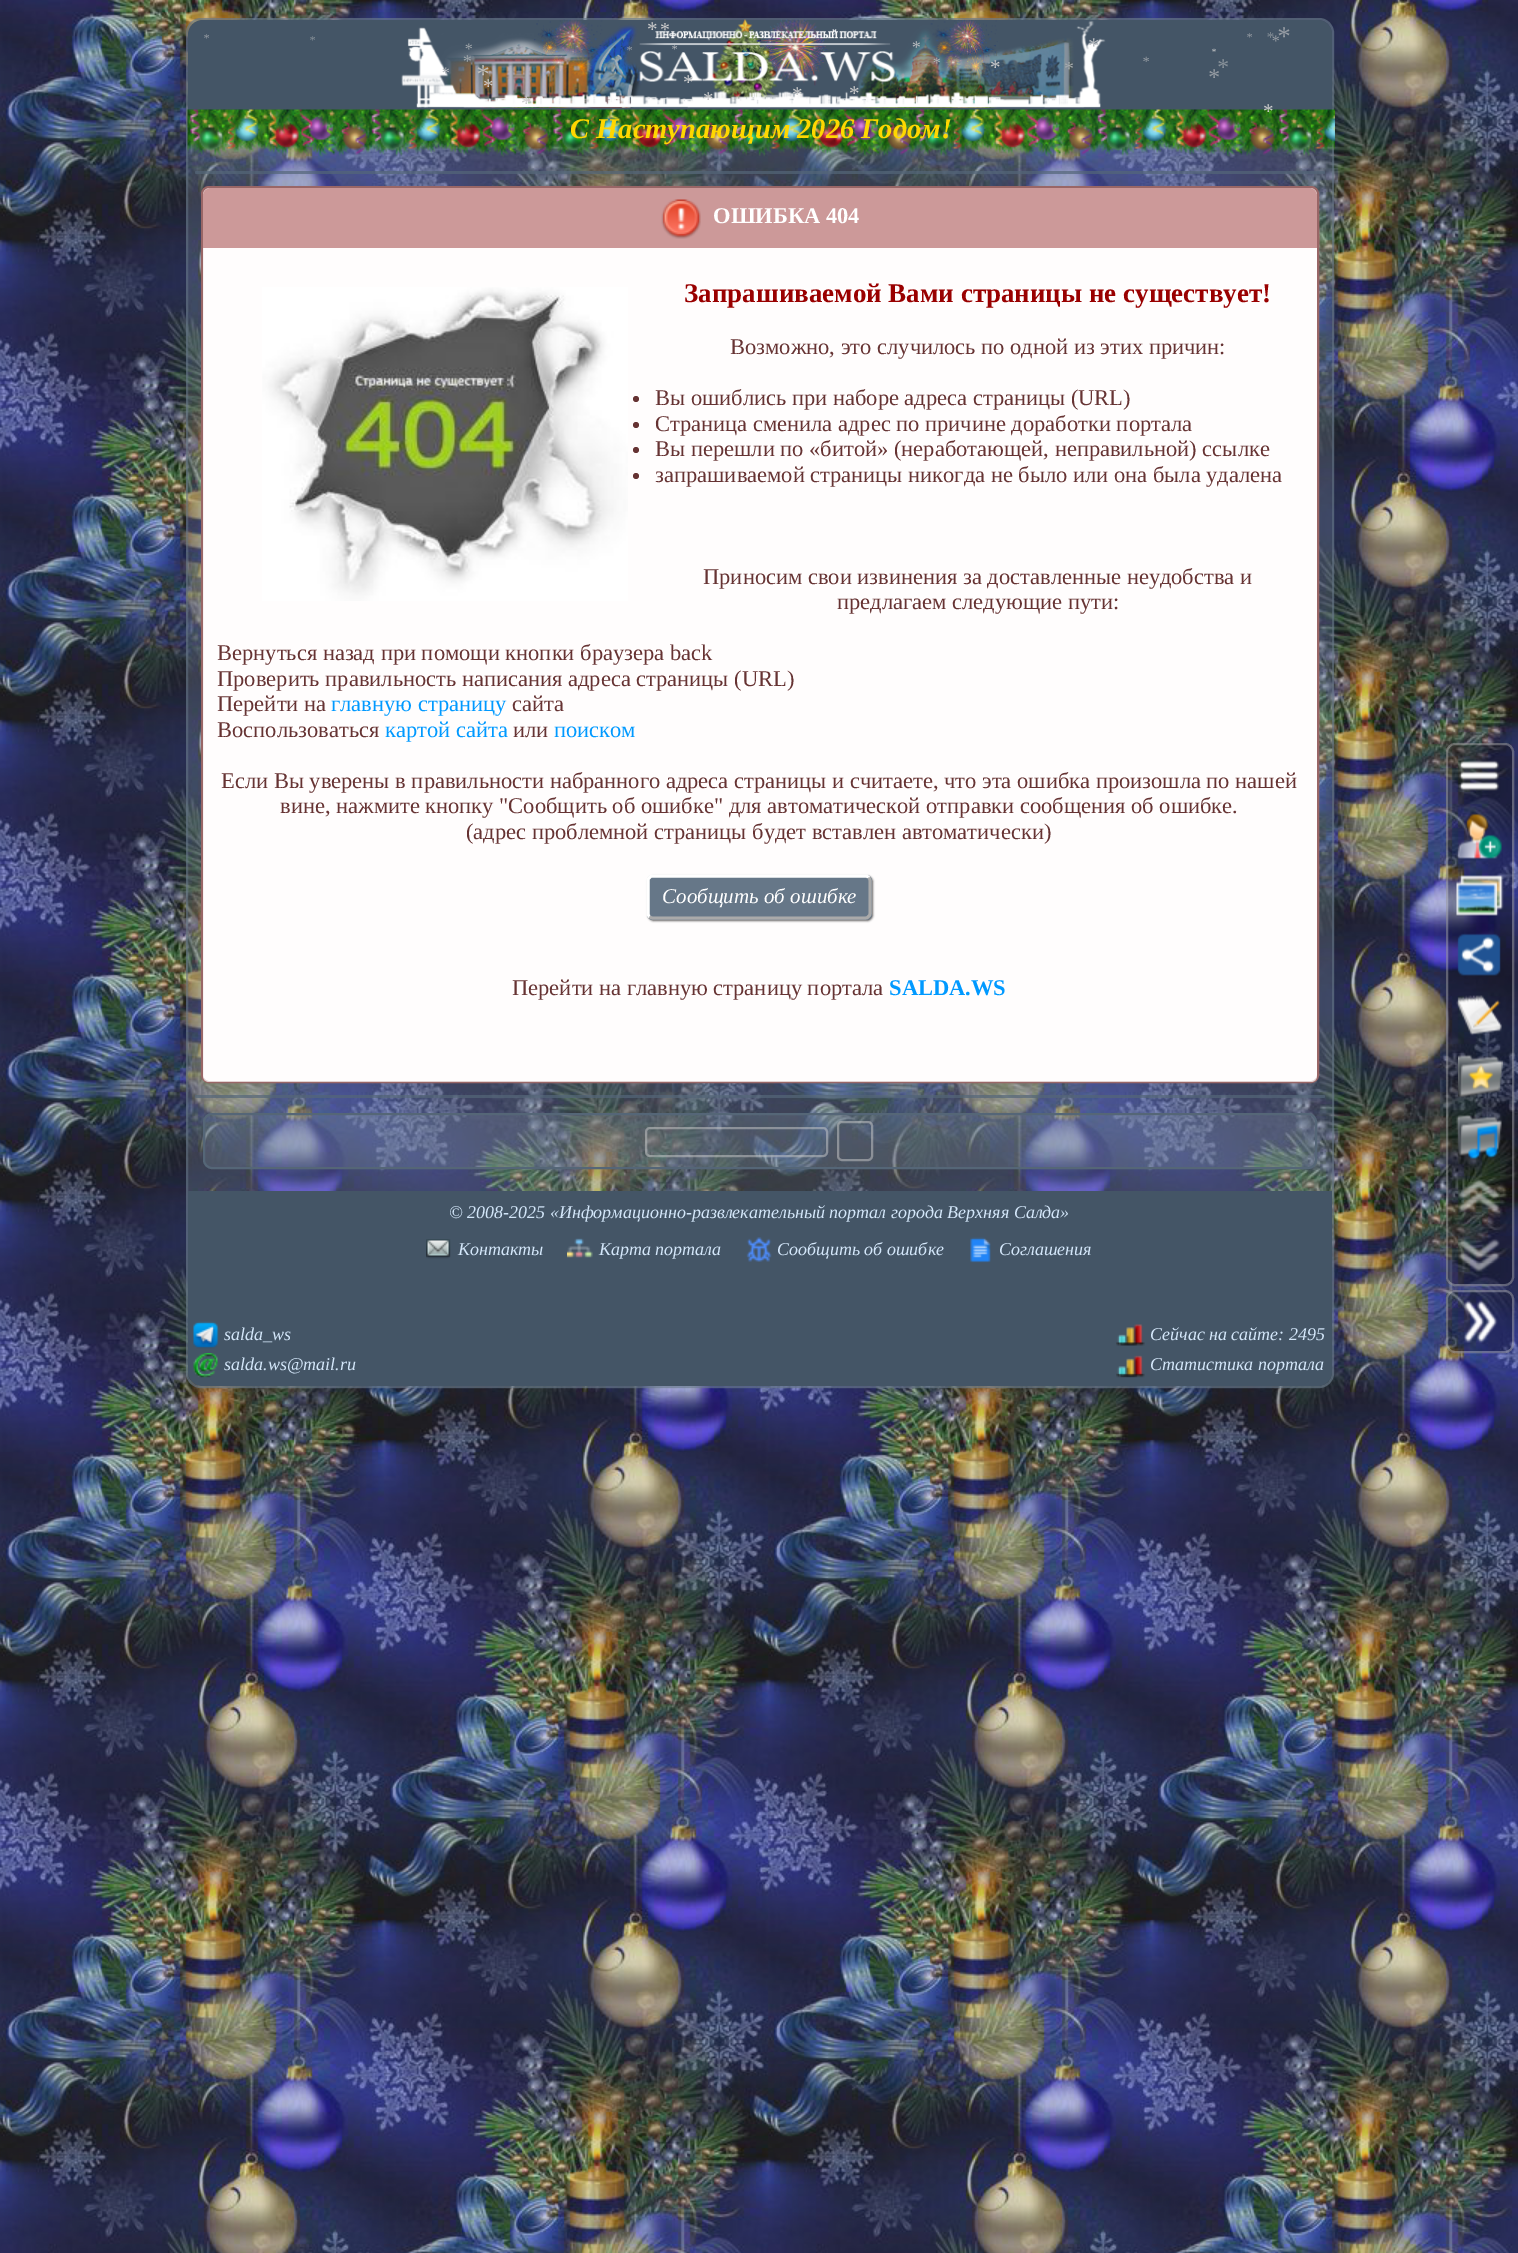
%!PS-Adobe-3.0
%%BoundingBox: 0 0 1518 2253
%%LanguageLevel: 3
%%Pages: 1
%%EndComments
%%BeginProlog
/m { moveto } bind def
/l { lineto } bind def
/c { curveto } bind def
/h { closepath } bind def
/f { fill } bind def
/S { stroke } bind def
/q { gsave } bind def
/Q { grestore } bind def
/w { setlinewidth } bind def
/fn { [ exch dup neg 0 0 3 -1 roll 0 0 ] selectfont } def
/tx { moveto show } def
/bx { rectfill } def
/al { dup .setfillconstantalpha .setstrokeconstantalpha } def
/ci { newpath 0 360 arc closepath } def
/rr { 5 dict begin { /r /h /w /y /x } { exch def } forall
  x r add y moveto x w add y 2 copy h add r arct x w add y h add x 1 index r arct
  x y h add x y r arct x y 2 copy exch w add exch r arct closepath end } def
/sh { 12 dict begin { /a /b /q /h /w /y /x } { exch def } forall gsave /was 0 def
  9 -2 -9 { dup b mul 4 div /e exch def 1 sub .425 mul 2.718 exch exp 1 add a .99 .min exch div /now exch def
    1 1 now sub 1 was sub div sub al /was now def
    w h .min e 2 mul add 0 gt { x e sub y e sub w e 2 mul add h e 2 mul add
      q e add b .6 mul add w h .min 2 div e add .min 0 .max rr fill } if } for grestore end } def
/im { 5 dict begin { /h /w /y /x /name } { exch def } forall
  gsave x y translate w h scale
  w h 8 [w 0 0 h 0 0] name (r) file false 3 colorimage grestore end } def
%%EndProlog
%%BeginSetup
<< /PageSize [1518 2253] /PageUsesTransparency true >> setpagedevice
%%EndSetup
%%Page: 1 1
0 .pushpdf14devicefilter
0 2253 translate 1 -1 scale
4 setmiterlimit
1 setgray
0 0 1518 2253 bx
(image0.raw) 0 0 1518 2253 im
0.3 al
0.467 0.533 0.6 setrgbcolor
186 18 1148 1370 15 rr f
0.5 al
0.4 0.467 0.533 setrgbcolor
2 w
187 19 1146 1368 14 rr S
1 al
0.267 0.333 0.4 setrgbcolor
203 20 m 1317 20 l 1325.5 20 1332 26.5 1332 35 c 1332 110 l 188 110 l 188 35 l 188 26.5 194.5 20 203 20 c h f
(image1.raw) 401 19 705 89 im
/LiberationSerif-Italic 12 fn
0.588 0.612 0.639 setrgbcolor
(*) 203 42 tx
0.533 0.569 0.6 setrgbcolor
(*) 309 44 tx
/LiberationSerif-Italic 16 fn
0.624 0.647 0.663 setrgbcolor
(*) 464 54 tx
/LiberationSerif-Italic 12 fn
0.588 0.612 0.639 setrgbcolor
(*) 626 54 tx
/LiberationSerif-Italic 21 fn
0.8 setgray
(*) 646 36 tx
/LiberationSerif-Italic 20 fn
(*) 659 36 tx
/LiberationSerif-Italic 12 fn
0.714 0.725 0.741 setrgbcolor
(*) 671 53 tx
/LiberationSerif-Italic 18 fn
(*) 911 53 tx
/LiberationSerif-Italic 22.5 fn
(*) 1087 53 tx
/LiberationSerif-Italic 10 fn
0.745 0.753 0.761 setrgbcolor
(*) 1211 55 tx
/LiberationSerif-Italic 12 fn
0.588 0.612 0.639 setrgbcolor
(*) 1246 41 tx
/LiberationSerif-Italic 16 fn
(*) 1271 46 tx
/LiberationSerif-Italic 15 fn
0.533 0.569 0.6 setrgbcolor
(*) 1266 42 tx
/LiberationSerif-Italic 27 fn
0.588 0.612 0.639 setrgbcolor
(*) 1276 45 tx
/LiberationSerif-Italic 16 fn
0.714 0.725 0.741 setrgbcolor
(*) 441 78 tx
/LiberationSerif-Italic 18 fn
0.624 0.647 0.663 setrgbcolor
(*) 462 67 tx
/LiberationSerif-Italic 27 fn
0.737 0.733 0.722 setrgbcolor
(*) 475 83 tx
/LiberationSerif-Italic 21 fn
0.8 setgray
(*) 682 89 tx
/LiberationSerif-Italic 16 fn
0.69 0.69 0.698 setrgbcolor
(*) 932 68 tx
/LiberationSerif-Italic 21 fn
0.8 setgray
(*) 989 74 tx
/LiberationSerif-Italic 20 fn
0.647 0.667 0.678 setrgbcolor
(*) 1063 75 tx
/LiberationSerif-Italic 14 fn
0.588 0.612 0.639 setrgbcolor
(*) 1142 66 tx
/LiberationSerif-Italic 24 fn
(*) 1207 85 tx
0.533 0.569 0.6 setrgbcolor
(*) 1216 75 tx
/LiberationSerif-Italic 21 fn
0.8 setgray
(*) 482 93 tx
(*) 791 101 tx
(*) 848 100 tx
(*) 520 110 tx
(*) 702 106 tx
(image2.raw) 187 109 1148 48 im
(*) 1262 118 tx
/LiberationSerif-BoldItalic 28.5 fn
1 0.843 0 setrgbcolor
(С Наступающим 2026 Годом!) 570 138 tx
0.7 al
0.329 0.4 0.471 setrgbcolor
195 171 1130 3 1.5 rr f
1 al
1 0.976 0.976 setrgbcolor
202 187 1116 895 7 rr q f Q
0.6 0.4 0.4 setrgbcolor
S
0.8 0.6 0.6 setrgbcolor
211 188 m 1309 188 l 1313.5 188 1317 191.5 1317 196 c 1317 248 l 203 248 l 203 196 l 203 191.5 206.5 188 211 188 c h f
(image3.raw) 661 199 40 40 im
/LiberationSerif-Bold 22.5 fn
1 setgray
(ОШИБКА 404) 713 223 tx
0.7 al
203 248 m 1317 248 l 1317 1076 l 1317 1079.5 1314.5 1082 1311 1082 c 209 1082 l 205.5 1082 203 1079.5 203 1076 c h f
1 al
(image4.raw) 262 287 366 314 im
/LiberationSerif-Bold 27 fn
0.6 0 0 setrgbcolor
(Запрашиваемой Вами страницы не существует!) 684 302 tx
/LiberationSerif-Regular 22.5 fn
0.4 0.2 0.2 setrgbcolor
(Возможно, это случилось по одной из этих причин:) 730 354 tx
636 399 3 ci f
(Вы ошиблись при наборе адреса страницы \(URL\)) 655 405 tx
636 425 3 ci f
(Страница сменила адрес по причине доработки портала) 655 431 tx
636 450 3 ci f
(Вы перешли по «битой» \(неработающей, неправильной\) ссылке) 655 456 tx
636 476 3 ci f
(запрашиваемой страницы никогда не было или она была удалена) 655 482 tx
(Приносим свои извинения за доставленные неудобства и) 703 584 tx
(предлагаем следующие пути:) 837 609 tx
(Вернуться назад при помощи кнопки браузера back) 217 660 tx
(Проверить правильность написания адреса страницы \(URL\)) 217 686 tx
(Перейти на) 217 711 tx
0 0.6 1 setrgbcolor
(главную страницу) 331 711 tx
0.4 0.2 0.2 setrgbcolor
(сайта) 512 711 tx
(Воспользоваться) 217 737 tx
0 0.6 1 setrgbcolor
(картой сайта) 385 737 tx
0.4 0.2 0.2 setrgbcolor
(или) 513 737 tx
0 0.6 1 setrgbcolor
(поиском) 554 737 tx
0.4 0.2 0.2 setrgbcolor
(Если Вы уверены в правильности набранного адреса страницы и считаете, что эта ошибка произошла по нашей) 221 788 tx
(вине, нажмите кнопку "Сообщить об ошибке" для автоматической отправки сообщения об ошибке.) 280 813 tx
(\(адрес проблемной страницы будет вставлен автоматически\)) 466 839 tx
0.4 setgray
648 876 225 45 6 1 1 sh
0.4 0.467 0.533 setrgbcolor
647 875 225 45 6 rr f
0.667 setgray
3 w
868.5 877.5 m 869.5 878 870 879.5 870 880.5 c 870 913.5 l 870 914.5 869.5 916 868.5 916.5 c 868 917.5 866.5 918 865.5 918 c 652.5 918 l 651.5 918 650 917.5 649.5 916.5 c S
1 setgray
649.5 916.5 m 648.5 916 648 914.5 648 913.5 c 648 880.5 l 648 879.5 648.5 878 649.5 877.5 c 650 876.5 651.5 876 652.5 876 c 865.5 876 l 866.5 876 868 876.5 868.5 877.5 c S
/LiberationSerif-Italic 21 fn
(Сообщить об ошибке) 662 903 tx
/LiberationSerif-Regular 22.5 fn
0.4 0.2 0.2 setrgbcolor
(Перейти на главную страницу портала) 512 995 tx
/LiberationSerif-Bold 22.5 fn
0 0.6 1 setrgbcolor
(SALDA.WS) 889 995 tx
0.7 al
0.329 0.4 0.471 setrgbcolor
195 1095 1130 3 1.5 rr f
0.3 al
0.467 0.533 0.6 setrgbcolor
204 1114 1112 54 8 rr f
1 al
0.333 0.4 0.467 setrgbcolor
2 w
204 1114 1112 54 8 rr S
0.5 al
0.8 setgray
646 1128 181 28 4 rr S
838 1122 34 38 4 rr S
0.3 al
0 setgray
1446 743 68 543 9 rr f
1 setgray
1447 744 66 541 8 rr S
1 al
(image5.raw) 1459 760 41 31 im
(image6.raw) 1456 813 46 46 im
(image7.raw) 1456 875 48 42 im
(image8.raw) 1457 933 44 43 im
(image9.raw) 1456 995 46 41 im
(image10.raw) 1458 1054 45 43 im
(image11.raw) 1456 1115 46 44 im
(image12.raw) 1458 1179 42 33 im
(image13.raw) 1458 1239 42 33 im
0.267 0.333 0.4 setrgbcolor
188 1191 m 1332 1191 l 1332 1371 l 1332 1379.5 1325.5 1386 1317 1386 c 203 1386 l 194.5 1386 188 1379.5 188 1371 c h f
/LiberationSerif-Italic 18 fn
0.827 0.902 0.976 setrgbcolor
(© 2008-2025 «Информационно-развлекательный портал города Верхняя Салда») 449 1218 tx
(image14.raw) 426 1239 25 20 im
(Контакты) 458 1255 tx
(image15.raw) 567 1238 26 20 im
(Карта портала) 599 1255 tx
(image16.raw) 746 1237 26 25 im
(Сообщить об ошибке) 777 1255 tx
(image17.raw) 970 1237 21 26 im
(Соглашения) 999 1255 tx
(image18.raw) 193 1321 26 28 im
(salda_ws) 224 1340 tx
(image19.raw) 193 1353 25 25 im
(salda.ws@mail.ru) 224 1370 tx
(image20.raw) 1116 1324 29 22 im
(Сейчас на сайте: 2495) 1150 1340 tx
(image21.raw) 1116 1355 29 23 im
(Статистика портала) 1150 1370 tx
0.3 al
0 setgray
1446 1290 68 63 9 rr f
1 setgray
1447 1291 66 61 8 rr S
1 al
(image22.raw) 1464 1300 34 43 im
.poppdf14devicefilter showpage
%%EOF
